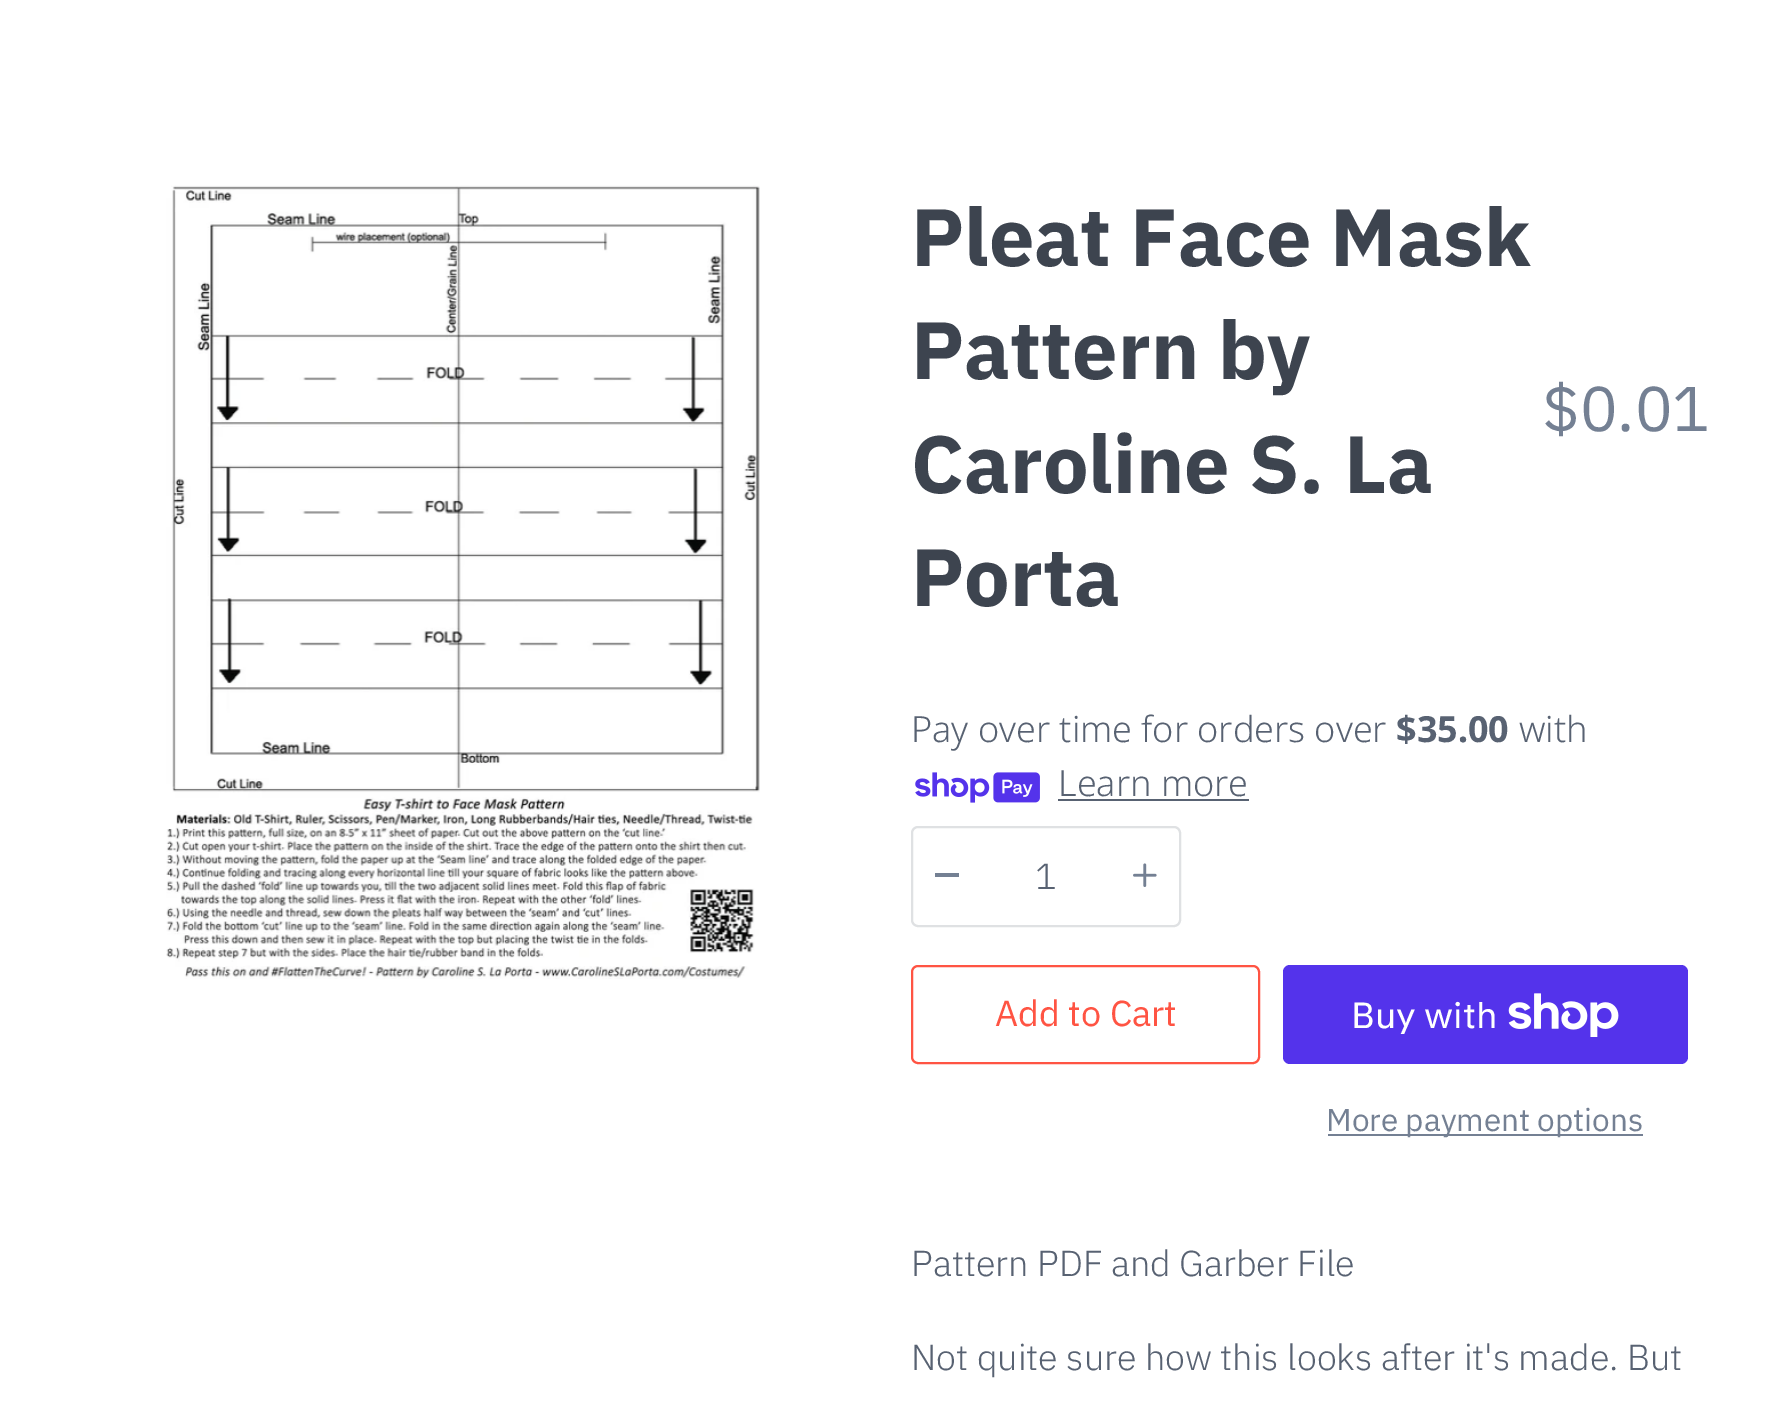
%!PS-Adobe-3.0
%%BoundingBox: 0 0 1776 1403
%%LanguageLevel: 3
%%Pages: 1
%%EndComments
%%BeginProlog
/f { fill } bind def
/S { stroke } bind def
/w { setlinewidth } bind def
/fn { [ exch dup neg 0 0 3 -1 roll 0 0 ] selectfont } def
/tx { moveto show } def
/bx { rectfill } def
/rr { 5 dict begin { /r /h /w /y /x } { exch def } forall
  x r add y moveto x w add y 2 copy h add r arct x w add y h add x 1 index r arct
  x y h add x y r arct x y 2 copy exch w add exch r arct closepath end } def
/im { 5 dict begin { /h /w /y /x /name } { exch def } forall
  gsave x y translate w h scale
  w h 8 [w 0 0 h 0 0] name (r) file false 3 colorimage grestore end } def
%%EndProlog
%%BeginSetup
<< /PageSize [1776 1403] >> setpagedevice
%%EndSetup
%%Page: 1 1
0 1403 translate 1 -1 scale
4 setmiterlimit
1 setgray
0 0 1776 1403 bx
(image0.raw) 166 185 594 794 im
/IBMPlexSans-Bold 81 fn
0.239 0.267 0.31 setrgbcolor
(Pleat Face Mask) 911 266 tx
(Pattern by) 911 379 tx
(Caroline S. La) 911 493 tx
(Porta) 911 606 tx
/IBMPlexSans-Regular 63 fn
0.455 0.502 0.576 setrgbcolor
($0.01) 1542 431 tx
/NotoSans-Light 36 fn
0.345 0.384 0.447 setrgbcolor
(Pay over time for orders over) 911 742 tx
/NotoSans-Bold 36 fn
($35.00) 1396 742 tx
/NotoSans-Light 36 fn
(with) 1519 742 tx
(image1.raw) 915 772 125 31 im
(Learn more) 1058 796 tx
1058 799 191 2 bx
0.875 0.882 0.89 setrgbcolor
2 w
912 827 268 99 6 rr S
0.455 0.502 0.576 setrgbcolor
935 873 24 4 bx
/IBMPlexSans-Light 36 fn
0.345 0.384 0.447 setrgbcolor
(1) 1035 889 tx
(image2.raw) 1133 863 24 24 im
1 0.329 0.263 setrgbcolor
912 966 347 97 6 rr S
/IBMPlexSans-Regular 36 fn
(Add to Cart) 995 1026 tx
0.329 0.2 0.922 setrgbcolor
1283 965 405 99 7 rr f
/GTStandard-Regular 36 fn
1 setgray
(Buy with) 1351 1028 tx
(image3.raw) 1508 993 111 44 im
0.455 0.502 0.576 setrgbcolor
1328 1134 315 2 bx
/IBMPlexSans-Regular 31.5 fn
(More payment options) 1326 1131 tx
/IBMPlexSans-Light 36 fn
0.345 0.384 0.447 setrgbcolor
(Pattern PDF and Garber File) 911 1276 tx
(Not quite sure how this looks after it's made. But) 911 1370 tx
showpage
%%EOF
